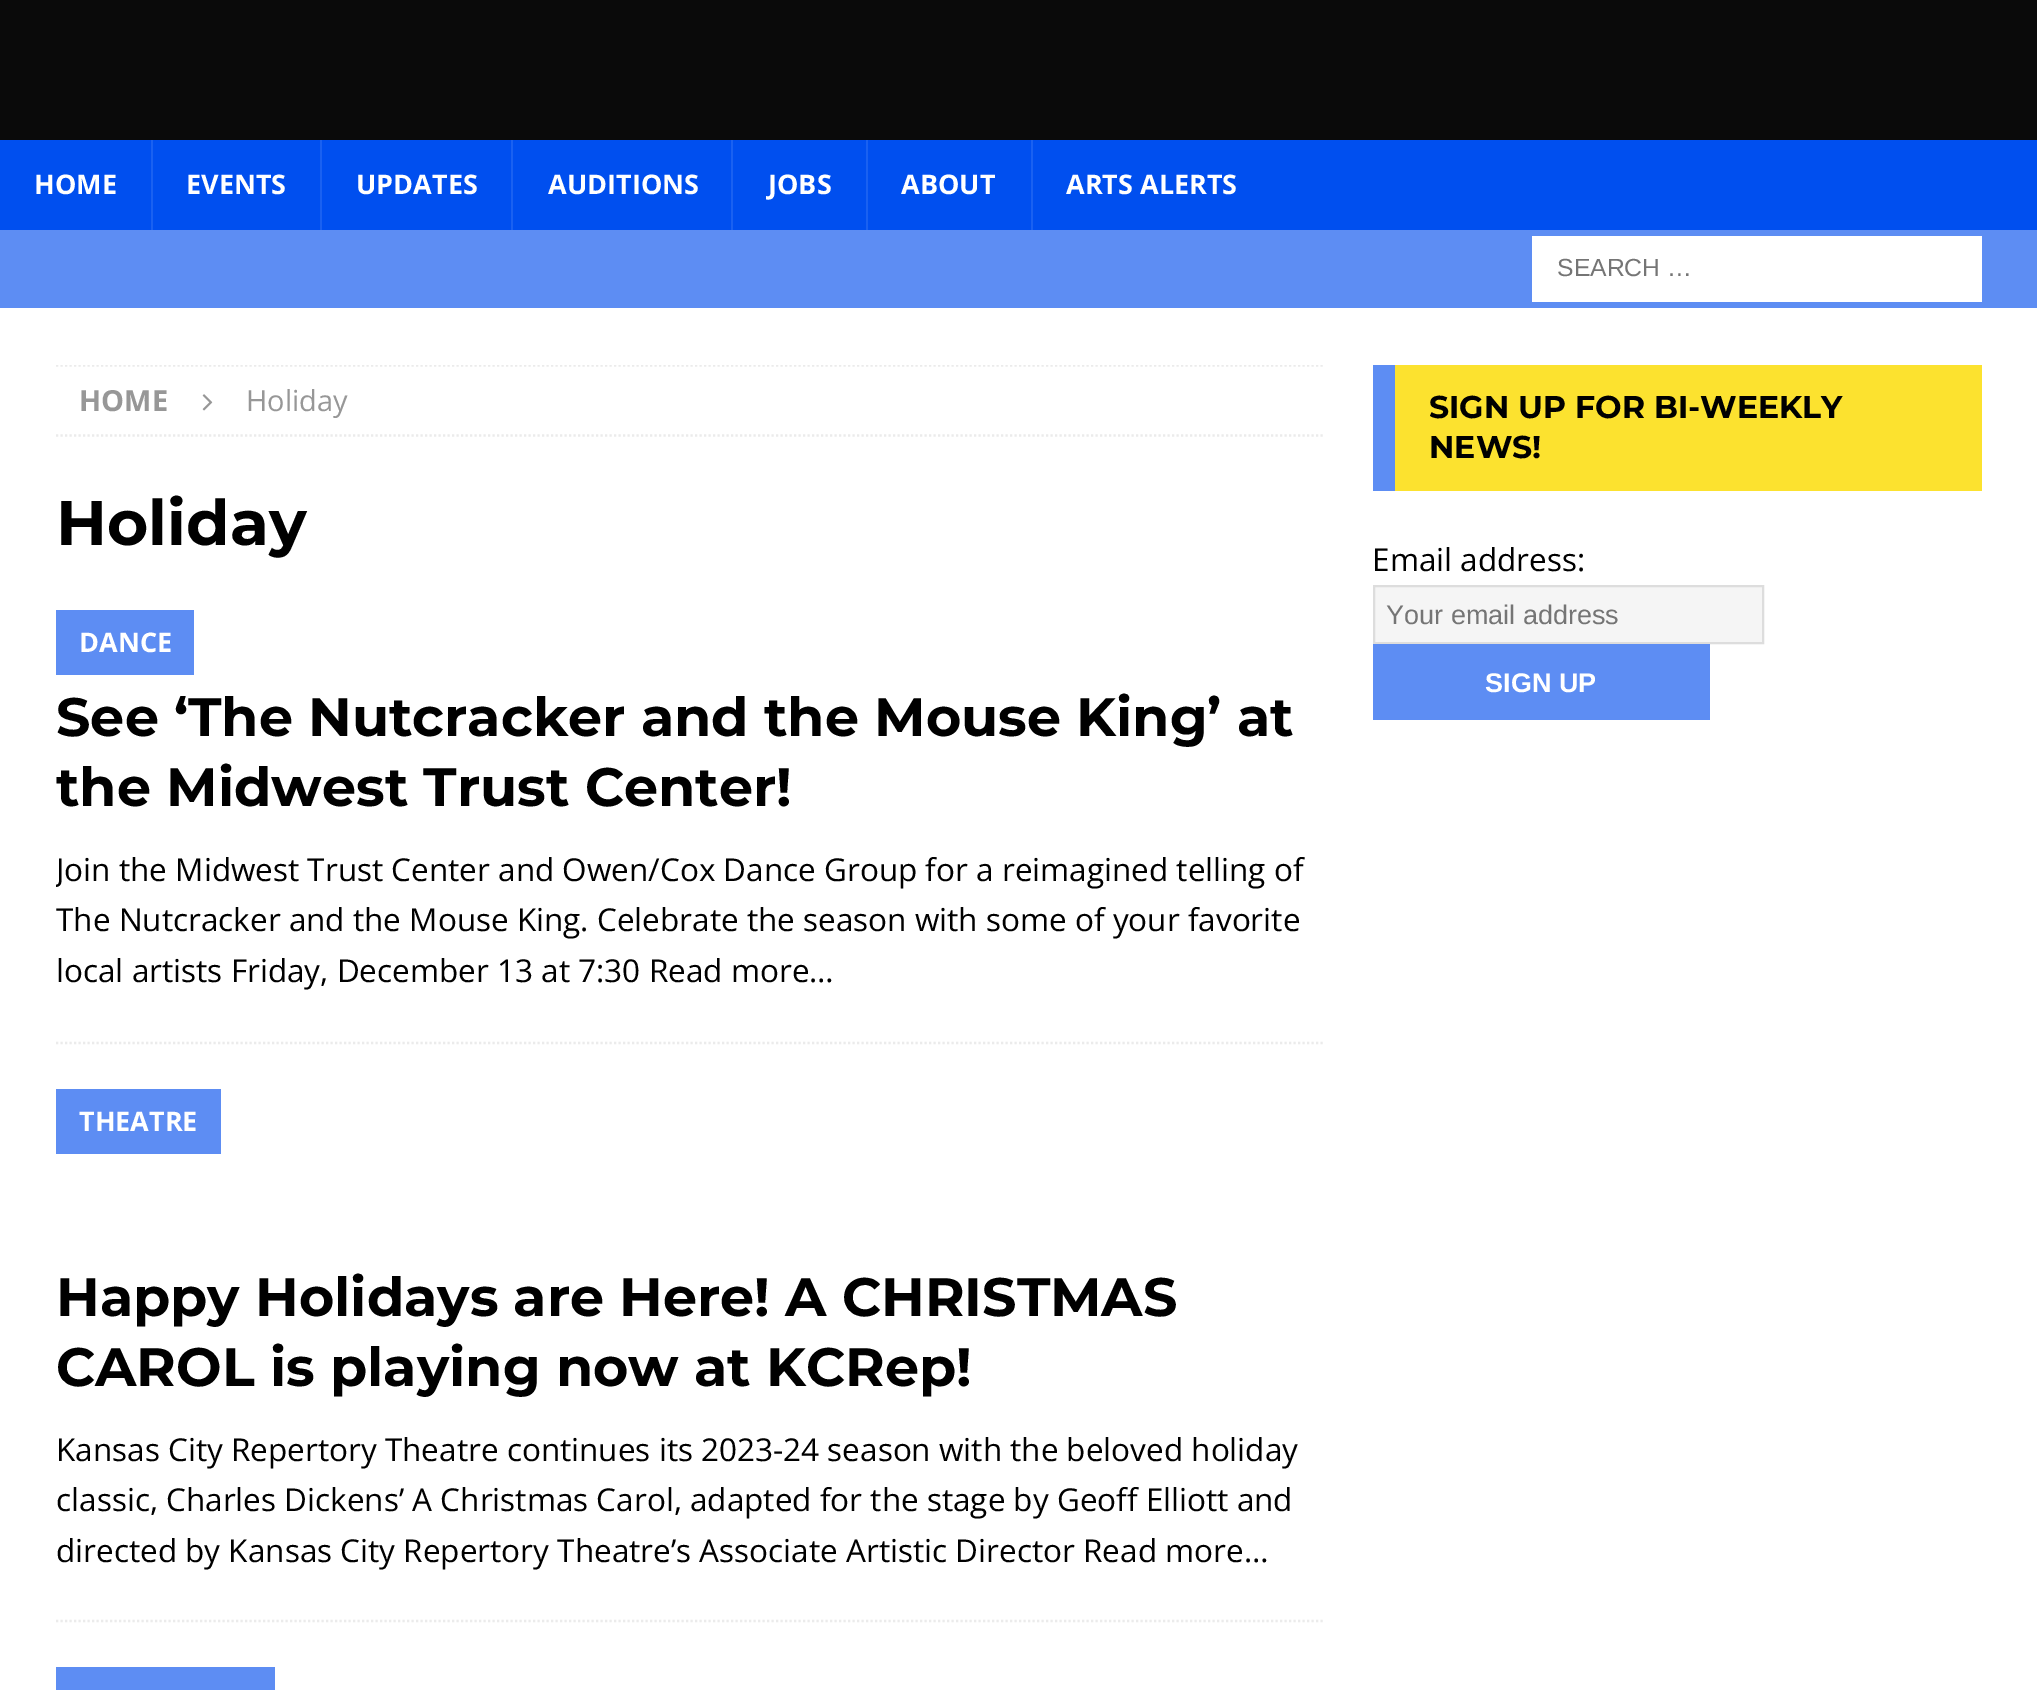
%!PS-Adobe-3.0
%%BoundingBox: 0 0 2037 1690
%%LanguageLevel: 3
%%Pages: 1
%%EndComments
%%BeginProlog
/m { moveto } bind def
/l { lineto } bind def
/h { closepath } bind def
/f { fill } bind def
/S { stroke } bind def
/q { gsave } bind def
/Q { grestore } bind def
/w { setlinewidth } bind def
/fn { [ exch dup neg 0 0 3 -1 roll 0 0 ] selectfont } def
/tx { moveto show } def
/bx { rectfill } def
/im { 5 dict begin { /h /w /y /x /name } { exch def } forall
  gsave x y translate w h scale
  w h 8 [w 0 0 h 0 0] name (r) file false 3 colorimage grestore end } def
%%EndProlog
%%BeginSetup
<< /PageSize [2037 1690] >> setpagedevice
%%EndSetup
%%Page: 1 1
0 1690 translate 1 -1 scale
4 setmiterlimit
0.039 setgray
0 0 2037 1690 bx
0 0.31 0.937 setrgbcolor
0 140 2037 90 bx
/OpenSans-Bold 27 fn
1 setgray
(HOME) 34 194 tx
0.102 0.38 0.945 setrgbcolor
151 140 2 90 bx
1 setgray
(EVENTS) 186 194 tx
0.102 0.38 0.945 setrgbcolor
320 140 2 90 bx
1 setgray
(UPDATES) 356 194 tx
0.102 0.38 0.945 setrgbcolor
511 140 2 90 bx
1 setgray
(AUDITIONS) 548 194 tx
0.102 0.38 0.945 setrgbcolor
731 140 2 90 bx
1 setgray
(JOBS) 768 194 tx
0.102 0.38 0.945 setrgbcolor
866 140 2 90 bx
1 setgray
(ABOUT) 901 194 tx
0.102 0.38 0.945 setrgbcolor
1031 140 2 90 bx
1 setgray
(ARTS ALERTS) 1066 194 tx
0.365 0.553 0.953 setrgbcolor
0 230 2037 78 bx
1 setgray
1532 236 450 66 bx
/LiberationSans-Regular 24.75 fn
0.459 setgray
(SEARCH …) 1557 276 tx
1 setgray
0 308 2037 1382 bx
q
56 365 1269 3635 rectclip
0.922 setgray
2.2 w
[2.25 2.25] 0 setdash
56 365.5 m 1325 365.5 l S
Q
0.922 setgray
2.2 w
[2.25 2.25] 0 setdash
56 435.5 m 1325 435.5 l S
/OpenSans-Bold 29 fn
0.592 setgray
(HOME) 79 411 tx
(image0.raw) 202 394 11 17 im
/OpenSans-Regular 29 fn
(Holiday) 246 411 tx
/Montserrat-Bold 63 fn
0 setgray
(Holiday) 56 545 tx
0.922 setgray
56 1043 m 1325 1043 l S
0.365 0.553 0.953 setrgbcolor
56 610 138 65 bx
/OpenSans-Bold 27 fn
1 setgray
(DANCE) 79 652 tx
/Montserrat-Bold 54 fn
0 setgray
(See ‘The Nutcracker and the Mouse King’ at) 56 736 tx
(the Midwest Trust Center!) 56 806 tx
q
56 365 1269 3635 rectclip
/OpenSans-Regular 31.5 fn
(Join the Midwest Trust Center and Owen/Cox Dance Group for a reimagined telling of) 56 881 tx
Q
/OpenSans-Regular 31.5 fn
(The Nutcracker and the Mouse King. Celebrate the season with some of your favorite) 56 931 tx
(local artists Friday, December 13 at 7:30 Read more…) 56 982 tx
0.922 setgray
56 1621 m 1325 1621 l S
0.365 0.553 0.953 setrgbcolor
56 1089 165 65 bx
/OpenSans-Bold 27 fn
1 setgray
(THEATRE) 79 1131 tx
/Montserrat-Bold 54 fn
0 setgray
(Happy Holidays are Here! A CHRISTMAS) 56 1316 tx
(CAROL is playing now at KCRep!) 56 1386 tx
/OpenSans-Regular 31.5 fn
(Kansas City Repertory Theatre continues its 2023-24 season with the beloved holiday) 56 1461 tx
(classic, Charles Dickens’ A Christmas Carol, adapted for the stage by Geoff Elliott and) 56 1511 tx
(directed by Kansas City Repertory Theatre’s Associate Artistic Director Read more…) 56 1562 tx
0.365 0.553 0.953 setrgbcolor
56 1667 219 23 bx
0.988 0.886 0.184 setrgbcolor
1395 365 587 126 bx
0.365 0.553 0.953 setrgbcolor
1373 365 22 126 bx
/Montserrat-Bold 31.5 fn
0 setgray
(SIGN UP FOR BI-WEEKLY) 1429 418 tx
(NEWS!) 1429 458 tx
/OpenSans-Regular 31.5 fn
(Email address:) 1372 571 tx
0.961 setgray
1374 586 m 1763 586 l 1763 643 l 1374 643 l h q f Q
0.867 setgray
2 w
[] 0 setdash
S
/LiberationSans-Regular 27 fn
0.459 setgray
(Your email address) 1386 624 tx
0.365 0.553 0.953 setrgbcolor
1373 644 337 76 bx
/LiberationSans-Bold 27 fn
1 setgray
(SIGN UP) 1485 692 tx
showpage
%%EOF
